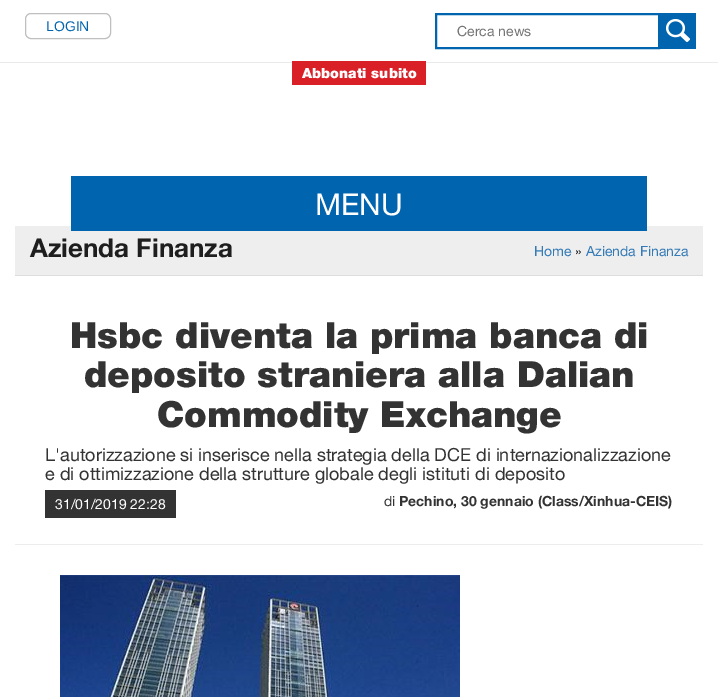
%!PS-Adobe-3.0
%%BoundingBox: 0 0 718 697
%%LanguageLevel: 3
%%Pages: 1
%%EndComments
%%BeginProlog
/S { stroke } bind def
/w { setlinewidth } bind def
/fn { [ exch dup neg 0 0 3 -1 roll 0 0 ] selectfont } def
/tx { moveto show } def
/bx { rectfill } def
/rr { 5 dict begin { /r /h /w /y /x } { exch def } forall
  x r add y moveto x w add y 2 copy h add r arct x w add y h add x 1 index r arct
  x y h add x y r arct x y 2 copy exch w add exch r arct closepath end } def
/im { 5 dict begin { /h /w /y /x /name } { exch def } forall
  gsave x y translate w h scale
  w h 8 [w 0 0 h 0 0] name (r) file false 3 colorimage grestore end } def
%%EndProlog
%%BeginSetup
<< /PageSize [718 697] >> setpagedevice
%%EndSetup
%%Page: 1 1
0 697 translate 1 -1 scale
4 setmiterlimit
1 setgray
0 0 718 697 bx
0.749 setgray
25.5 13.5 85 25 5.5 rr S
/LiberationSans-Regular 14 fn
0 0.392 0.686 setrgbcolor
(LOGIN) 46 31 tx
2 w
436 14 223 34 rectstroke
/HelveticaNeue-Regular 14 fn
0.459 setgray
(Cerca news) 457 36 tx
(image0.raw) 660 13 36 36 im
0.918 setgray
0 62 718 1 bx
0.855 0.125 0.153 setrgbcolor
292 61 134 24 bx
/HelveticaNeue-Black 14 fn
1 setgray
(Abbonati subito) 302 78 tx
0.933 setgray
15 226 688 49 bx
0 0.392 0.686 setrgbcolor
71 176 576 55 bx
/HelveticaNeue-Regular 30 fn
1 setgray
(MENU) 315 215 tx
0.867 setgray
15 275 688 1 bx
/HelveticaNeue-Bold 26 fn
0.118 setgray
(Azienda Finanza) 30 257 tx
/HelveticaNeue-Regular 14 fn
0.2 0.478 0.718 setrgbcolor
(Home) 534 256 tx
0.118 setgray
(») 575 256 tx
0.2 0.478 0.718 setrgbcolor
(Azienda Finanza) 586 256 tx
0.929 setgray
15 544 688 1 bx
/HelveticaNeue-Black 36 fn
0.2 setgray
(Hsbc diventa la prima banca di) 70 348 tx
(deposito straniera alla Dalian) 84 387 tx
(Commodity Exchange) 157 427 tx
/HelveticaNeue-Regular 18 fn
(L'autorizzazione si inserisce nella strategia della DCE di internazionalizzazione) 45 461 tx
(e di ottimizzazione della strutture globale degli istituti di deposito) 45 480 tx
45 490 131 28 bx
/HelveticaNeue-Regular 14 fn
1 setgray
(31/01/2019 22:28) 55 509 tx
0.2 setgray
(di) 384 506 tx
/HelveticaNeue-Bold 14 fn
(Pechino, 30 gennaio \(Class/Xinhua-CEIS\)) 399 506 tx
(image1.raw) 60 575 400 122 im
showpage
%%EOF
